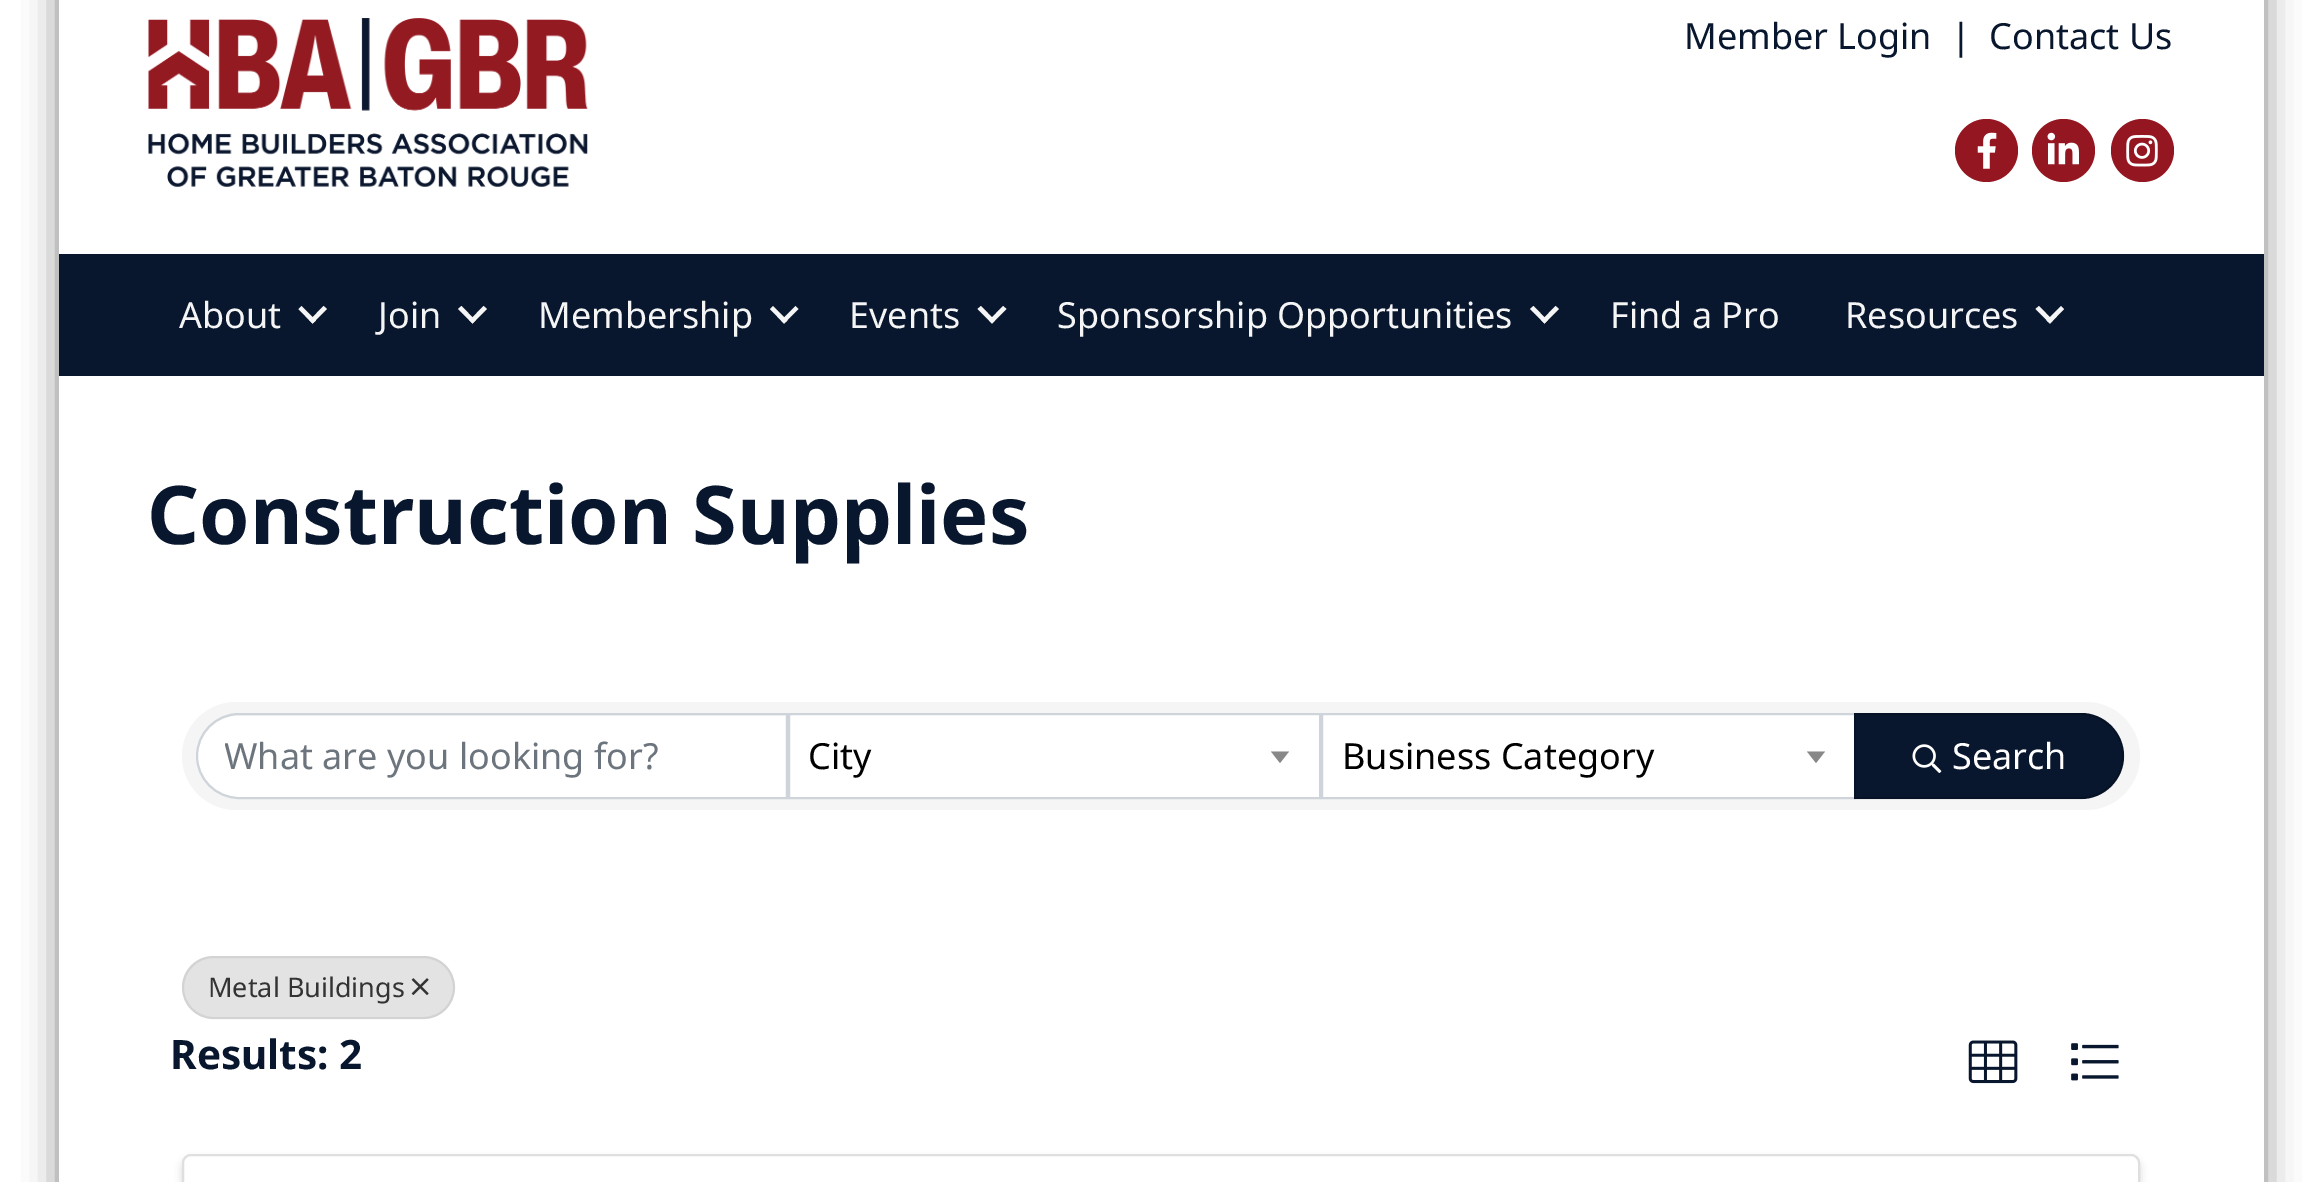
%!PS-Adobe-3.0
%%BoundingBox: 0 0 2319 1182
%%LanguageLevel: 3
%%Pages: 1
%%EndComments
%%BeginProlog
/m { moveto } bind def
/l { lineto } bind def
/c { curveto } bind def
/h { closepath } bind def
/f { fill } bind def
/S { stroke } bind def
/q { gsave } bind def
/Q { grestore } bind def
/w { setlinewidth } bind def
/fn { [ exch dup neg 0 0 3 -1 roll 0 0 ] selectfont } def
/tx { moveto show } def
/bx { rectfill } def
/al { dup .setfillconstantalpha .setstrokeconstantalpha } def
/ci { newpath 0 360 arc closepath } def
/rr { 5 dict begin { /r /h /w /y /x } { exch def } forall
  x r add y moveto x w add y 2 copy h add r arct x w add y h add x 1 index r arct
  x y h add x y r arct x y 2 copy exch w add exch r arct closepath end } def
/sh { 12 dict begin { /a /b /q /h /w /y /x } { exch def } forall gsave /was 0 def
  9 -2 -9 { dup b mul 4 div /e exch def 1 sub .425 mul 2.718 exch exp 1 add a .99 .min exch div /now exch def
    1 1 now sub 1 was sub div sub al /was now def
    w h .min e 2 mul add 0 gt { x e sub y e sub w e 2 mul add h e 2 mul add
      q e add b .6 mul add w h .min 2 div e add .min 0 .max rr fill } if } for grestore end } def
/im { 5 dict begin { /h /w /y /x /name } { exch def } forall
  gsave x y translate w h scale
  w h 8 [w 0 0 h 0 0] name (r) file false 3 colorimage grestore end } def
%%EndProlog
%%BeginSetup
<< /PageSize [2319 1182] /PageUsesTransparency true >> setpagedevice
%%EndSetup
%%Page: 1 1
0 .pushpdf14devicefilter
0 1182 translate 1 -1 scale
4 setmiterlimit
1 setgray
0 0 2319 1182 bx
0.498 setgray
59 -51 2205 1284 0 17 1 sh
1 setgray
59 0 2205 254 bx
(image0.raw) 148 18 440 169 im
/NotoSans-Regular 36 fn
0.031 0.09 0.18 setrgbcolor
(Member Login) 1684 49 tx
(|) 1951 49 tx
(Contact Us) 1989 49 tx
0.576 0.086 0.129 setrgbcolor
1986.5 150.5 31.5 ci f
(image1.raw) 1977 132 20 37 im
2063.5 150.5 31.5 ci f
(image2.raw) 2047 132 32 33 im
2142.5 150.5 31.5 ci f
(image3.raw) 2126 135 32 32 im
0.031 0.09 0.18 setrgbcolor
59 254 2205 122 bx
0.961 setgray
(About) 179 328 tx
323.5 306 m 327 309 l 312.5 323.5 l 309.5 320.5 l h f
301.5 306 m 316 320.5 l 312.5 323.5 l 298.5 309 l h f
(Join) 378 328 tx
483.5 306 m 487 309 l 472.5 323.5 l 469.5 320.5 l h f
461.5 306 m 475.5 320.5 l 472.5 323.5 l 458 309 l h f
(Membership) 538 328 tx
795.5 306 m 798.5 309 l 784 323.5 l 781 320.5 l h f
773 306 m 787.5 320.5 l 784 323.5 l 770 309 l h f
(Events) 849 328 tx
1003 306 m 1006.5 309 l 992 323.5 l 989 320.5 l h f
981 306 m 995 320.5 l 992 323.5 l 977.5 309 l h f
(Sponsorship Opportunities) 1057 328 tx
1555.5 306 m 1559 309 l 1544.5 323.5 l 1541.5 320.5 l h f
1533.5 306 m 1547.5 320.5 l 1544.5 323.5 l 1530 309 l h f
(Find a Pro) 1610 328 tx
(Resources) 1845 328 tx
2061 306 m 2064 309 l 2050 323.5 l 2046.5 320.5 l h f
2039 306 m 2053 320.5 l 2050 323.5 l 2035.5 309 l h f
1 setgray
59 376 2205 806 bx
/NotoSans-Bold 81 fn
0.031 0.09 0.18 setrgbcolor
(Construction Supplies) 147 544 tx
0.961 setgray
182 702 1958 108 54 rr f
1 setgray
238.5 716 m 785 716 l 785 797 l 238.5 797 l 216 797 198 779 198 756.5 c 198 734 216 716 238.5 716 c h f
0.808 0.831 0.855 setrgbcolor
2 w
239 714 m 787 714 l 787 798 l 239 798 l 216 798 197 779 197 756 c 197 733 216 714 239 714 c h S
q
225 731 533 50 rectclip
/NotoSans-Regular 36 fn
0.424 0.459 0.49 setrgbcolor
(What are you looking for?) 224 769 tx
Q
1 setgray
789 714 m 1320 714 l 1320 798 l 789 798 l h q f Q
0.808 0.831 0.855 setrgbcolor
S
/NotoSans-Regular 36 fn
0 setgray
(City) 808 769 tx
0.533 setgray
1271 751.5 m 1289 751.5 l 1280 763 l h f
1 setgray
1322 714 m 1855 714 l 1855 798 l 1322 798 l h q f Q
0.808 0.831 0.855 setrgbcolor
S
0 setgray
(Business Category) 1342 769 tx
0.533 setgray
1807 751.5 m 1825 751.5 l 1816 763 l h f
0.031 0.09 0.18 setrgbcolor
1854 713 m 2081 713 l 2104.5 713 2124 732.5 2124 756 c 2124 779.5 2104.5 799 2081 799 c 1854 799 l h f
0.2 al
0 setgray
1855 714 m 2081 714 l 2104 714 2123 733 2123 756 c 2123 779 2104 798 2081 798 c 1855 798 l h S
1 al
(image4.raw) 1912 744 30 29 im
1 setgray
(Search) 1952 769 tx
0.89 setgray
182 956 273 63 31.5 rr f
0.07 al
0 setgray
183 957 271 61 30.5 rr S
/NotoSans-Regular 27 fn
1 al
0.2 setgray
(Metal Buildings) 208 997 tx
(image5.raw) 411 978 18 17 im
/NotoSans-Bold 40.5 fn
0.031 0.09 0.18 setrgbcolor
(Results: 2) 170 1069 tx
(image6.raw) 1968 1040 50 44 im
(image7.raw) 2071 1043 48 38 im
0 setgray
182 1159 1958 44 9 4 0.15 sh
1 setgray
183 1155 1956 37 8 rr q f Q
0.875 setgray
S
.poppdf14devicefilter showpage
%%EOF
